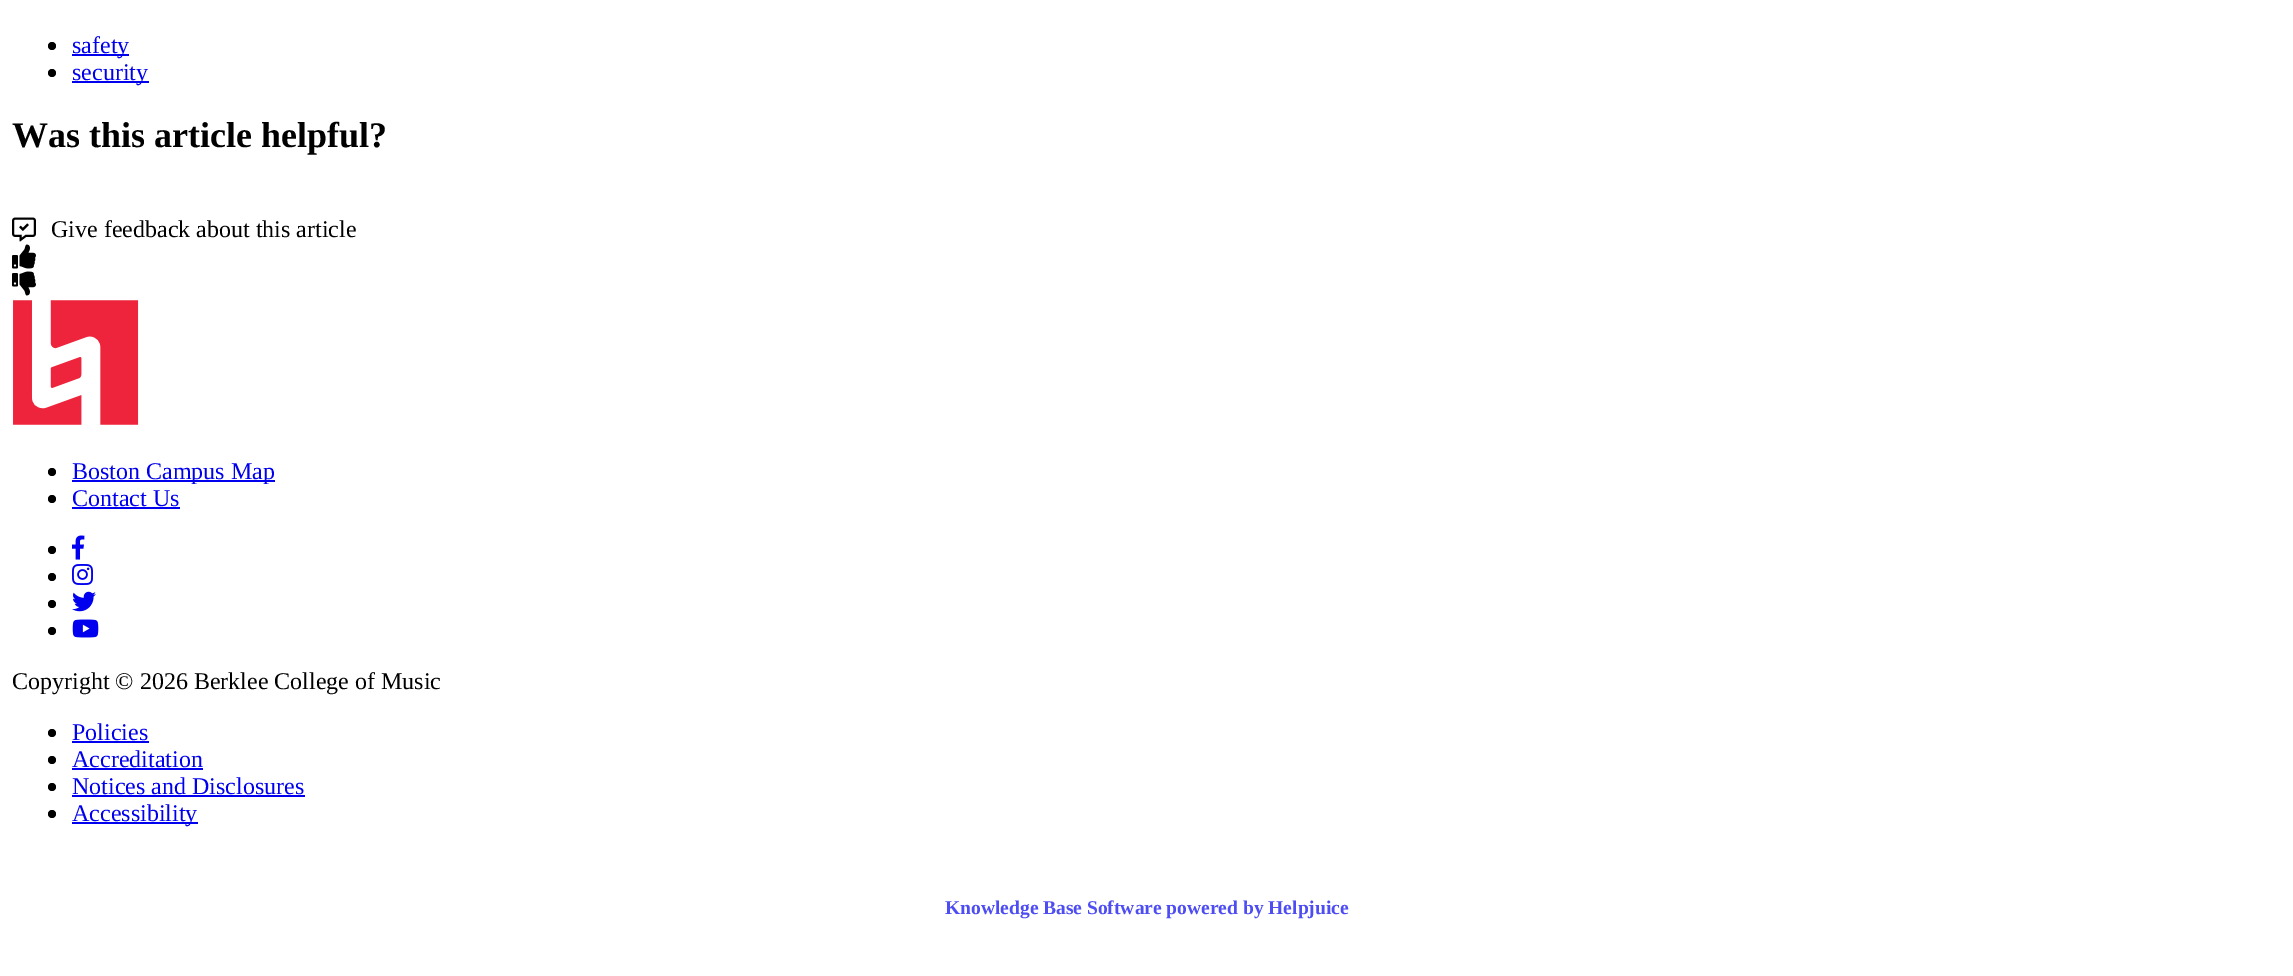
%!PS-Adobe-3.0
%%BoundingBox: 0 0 2293 976
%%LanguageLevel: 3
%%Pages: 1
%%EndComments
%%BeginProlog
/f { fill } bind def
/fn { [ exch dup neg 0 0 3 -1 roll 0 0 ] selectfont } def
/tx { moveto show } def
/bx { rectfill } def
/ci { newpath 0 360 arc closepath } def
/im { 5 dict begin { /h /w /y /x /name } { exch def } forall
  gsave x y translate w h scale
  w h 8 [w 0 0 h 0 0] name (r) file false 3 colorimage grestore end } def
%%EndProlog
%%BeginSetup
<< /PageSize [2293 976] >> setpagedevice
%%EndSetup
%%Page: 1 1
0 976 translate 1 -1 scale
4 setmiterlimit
1 setgray
0 0 2293 976 bx
0 setgray
52 46 4 ci f
0 0 0.933 setrgbcolor
72 54 57 2 bx
/LiberationSerif-Regular 24 fn
(safety) 72 53 tx
0 setgray
52 73 4 ci f
0 0 0.933 setrgbcolor
72 81 77 2 bx
(security) 72 80 tx
/LiberationSerif-Bold 36 fn
0 setgray
(Was this article helpful?) 12 147 tx
(image0.raw) 12 217 24 25 im
/LiberationSerif-Regular 24 fn
(Give feedback about this article) 51 237 tx
(image1.raw) 12 244 24 25 im
(image2.raw) 12 271 24 25 im
(image3.raw) 13 300 126 125 im
52 472 4 ci f
0 0 0.933 setrgbcolor
72 480 203 2 bx
(Boston Campus Map) 72 479 tx
0 setgray
52 499 4 ci f
0 0 0.933 setrgbcolor
(Contact Us) 72 506 tx
72 507 108 2 bx
0 setgray
52 550 4 ci f
(image4.raw) 72 535 13 25 im
52 577 4 ci f
(image5.raw) 72 564 21 21 im
52 604 4 ci f
(image6.raw) 72 591 24 21 im
52 631 4 ci f
(image7.raw) 72 619 27 19 im
(Copyright © 2026 Berklee College of Music) 12 689 tx
52 733 4 ci f
0 0 0.933 setrgbcolor
(Policies) 72 740 tx
72 741 77 2 bx
0 setgray
52 760 4 ci f
0 0 0.933 setrgbcolor
(Accreditation) 72 767 tx
72 768 131 2 bx
0 setgray
52 787 4 ci f
0 0 0.933 setrgbcolor
(Notices and Disclosures) 72 794 tx
72 795 233 2 bx
0 setgray
52 814 4 ci f
0 0 0.933 setrgbcolor
72 822 126 2 bx
(Accessibility) 72 821 tx
/LiberationSerif-Bold 19.5 fn
0.302 0.302 0.953 setrgbcolor
(Knowledge Base Software powered by Helpjuice) 945 914 tx
showpage
%%EOF
